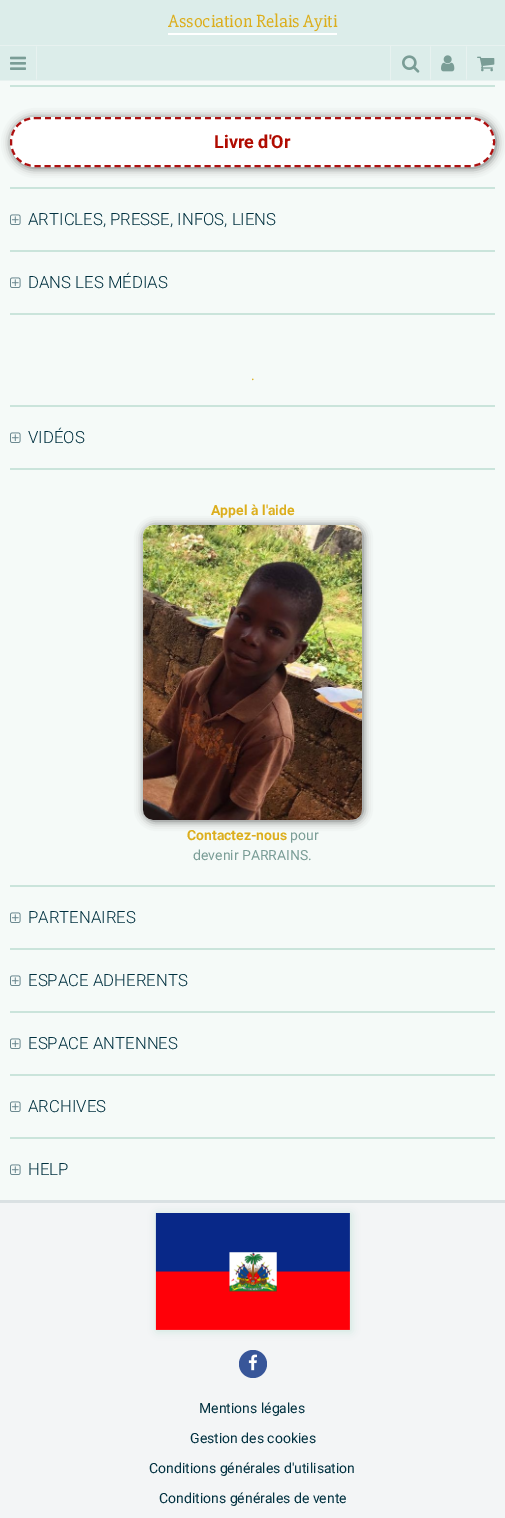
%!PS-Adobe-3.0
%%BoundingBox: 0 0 505 1518
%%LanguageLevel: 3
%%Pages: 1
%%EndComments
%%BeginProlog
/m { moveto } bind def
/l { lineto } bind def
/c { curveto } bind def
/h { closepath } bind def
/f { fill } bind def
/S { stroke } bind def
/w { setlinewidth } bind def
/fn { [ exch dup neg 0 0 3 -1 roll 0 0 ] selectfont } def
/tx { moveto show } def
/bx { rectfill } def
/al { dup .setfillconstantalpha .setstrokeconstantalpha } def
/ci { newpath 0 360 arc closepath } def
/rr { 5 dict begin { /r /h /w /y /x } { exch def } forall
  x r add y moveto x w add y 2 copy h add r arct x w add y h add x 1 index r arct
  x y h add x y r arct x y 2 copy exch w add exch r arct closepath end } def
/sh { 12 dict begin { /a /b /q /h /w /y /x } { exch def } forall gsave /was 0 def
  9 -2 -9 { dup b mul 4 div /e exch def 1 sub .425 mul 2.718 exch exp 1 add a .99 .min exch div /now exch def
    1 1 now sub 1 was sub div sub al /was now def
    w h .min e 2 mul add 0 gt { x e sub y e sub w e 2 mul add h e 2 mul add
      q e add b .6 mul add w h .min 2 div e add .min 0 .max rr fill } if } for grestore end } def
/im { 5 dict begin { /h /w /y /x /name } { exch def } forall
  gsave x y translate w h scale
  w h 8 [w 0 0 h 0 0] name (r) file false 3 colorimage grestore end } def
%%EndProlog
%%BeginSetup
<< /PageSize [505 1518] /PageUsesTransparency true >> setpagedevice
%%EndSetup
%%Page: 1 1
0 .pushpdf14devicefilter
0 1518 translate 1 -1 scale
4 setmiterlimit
0.953 0.961 0.965 setrgbcolor
0 0 505 1518 bx
0.863 0.929 0.918 setrgbcolor
0 0 505 80 bx
1 setgray
168 33 169 2 bx
/Slabo27px-Regular 18.25 fn
0.863 0.682 0.114 setrgbcolor
(Association Relais Ayiti) 168 27 tx
0.91 0.949 0.941 setrgbcolor
0 45 505 1 bx
0 80 505 1 bx
37 46 m 37 80 l 36 79 l 36 47 l h f
(image0.raw) 10 56 16 14 im
390 46 1 34 bx
(image1.raw) 402 55 18 18 im
430 80 m 430 46 l 431 47 l 431 79 l h f
(image2.raw) 441 55 14 17 im
466 80 m 466 46 l 467 47 l 467 79 l h f
(image3.raw) 477 56 18 16 im
0.961 0.98 0.973 setrgbcolor
0 81 505 1119 bx
0.792 0.894 0.859 setrgbcolor
10 85 485 2 bx
0.396 setgray
11 118 485 50 25 4.5 1 sh
1 setgray
10 117 485 50 25 rr f
0.675 0.063 0.063 setrgbcolor
2 w
[6 4] 0 setdash
35 118 m 470 118 l 483.5 118 494 128.5 494 142 c 494 155.5 483.5 166 470 166 c 35 166 l 21.5 166 11 155.5 11 142 c 11 128.5 21.5 118 35 118 c h S
/Roboto-Bold 18 fn
0.69 0.043 0 setrgbcolor
(Livre d'Or) 214 148 tx
0.792 0.894 0.859 setrgbcolor
10 187 485 2 bx
(image4.raw) 10 214 11 11 im
/Roboto-Light 16.75 fn
0 0.188 0.247 setrgbcolor
(ARTICLES, PRESSE, INFOS, LIENS) 28 225 tx
0.792 0.894 0.859 setrgbcolor
10 250 485 2 bx
(image4.raw) 10 277 11 11 im
0 0.188 0.247 setrgbcolor
(DANS LES MÉDIAS) 28 288 tx
0.792 0.894 0.859 setrgbcolor
10 313 485 2 bx
/Roboto-Regular 14 fn
0.863 0.682 0.114 setrgbcolor
(.) 251 380 tx
0.792 0.894 0.859 setrgbcolor
10 405 485 2 bx
(image4.raw) 10 432 11 11 im
/Roboto-Light 16.75 fn
0 0.188 0.247 setrgbcolor
(VIDÉOS) 28 443 tx
0.792 0.894 0.859 setrgbcolor
10 468 485 2 bx
0.396 setgray
144 526 219 295 10 4.5 1 sh
/Roboto-Bold 14 fn
0.863 0.682 0.114 setrgbcolor
(Appel à l'aide) 211 515 tx
(image5.raw) 143 525 219 295 im
(Contactez-nous) 187 840 tx
/Roboto-Regular 14 fn
0.478 0.616 0.588 setrgbcolor
(pour) 290 840 tx
(devenir PARRAINS.) 193 860 tx
0.792 0.894 0.859 setrgbcolor
10 885 485 2 bx
(image4.raw) 10 912 11 11 im
/Roboto-Light 16.75 fn
0 0.188 0.247 setrgbcolor
(PARTENAIRES) 28 923 tx
0.792 0.894 0.859 setrgbcolor
10 948 485 2 bx
(image4.raw) 10 975 11 11 im
0 0.188 0.247 setrgbcolor
(ESPACE ADHERENTS) 28 986 tx
0.792 0.894 0.859 setrgbcolor
10 1011 485 2 bx
(image4.raw) 10 1038 11 11 im
0 0.188 0.247 setrgbcolor
(ESPACE ANTENNES) 28 1049 tx
0.792 0.894 0.859 setrgbcolor
10 1074 485 2 bx
(image4.raw) 10 1101 11 11 im
0 0.188 0.247 setrgbcolor
(ARCHIVES) 28 1112 tx
0.792 0.894 0.859 setrgbcolor
10 1137 485 2 bx
(image4.raw) 10 1164 11 11 im
0 0.188 0.247 setrgbcolor
(HELP) 28 1175 tx
0.855 0.882 0.89 setrgbcolor
0 1200 505 3 bx
0.792 0.894 0.859 setrgbcolor
157 1214 194 117 0 4.5 1 sh
(image6.raw) 155 1213 195 117 im
0.22 0.337 0.6 setrgbcolor
253 1364 14 ci f
(image7.raw) 248 1354 9 17 im
/Roboto-Regular 14 fn
0 0.188 0.247 setrgbcolor
(Mentions légales) 199 1413 tx
(Gestion des cookies) 190 1443 tx
(Conditions générales d'utilisation) 149 1473 tx
(Conditions générales de vente) 159 1503 tx
.poppdf14devicefilter showpage
%%EOF
